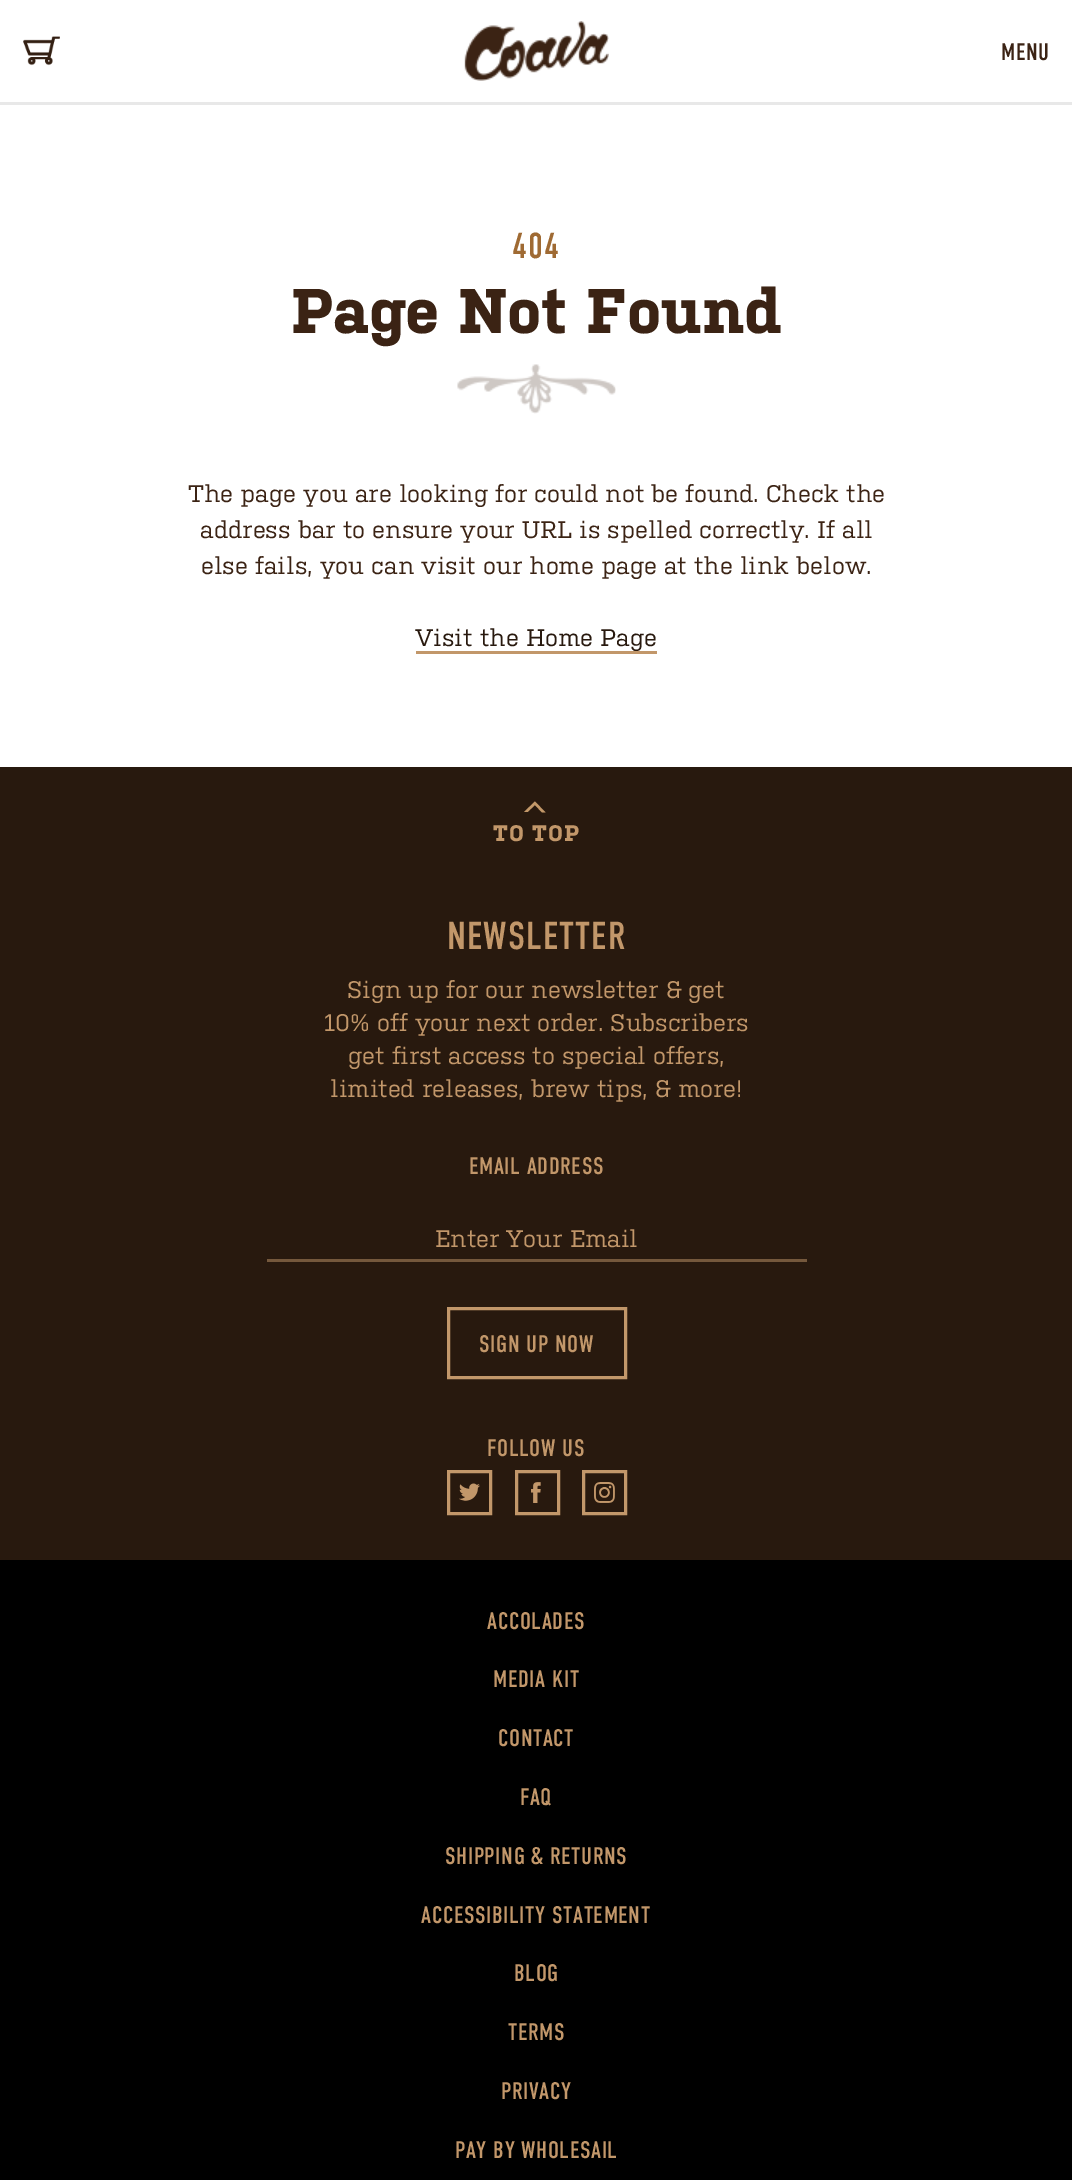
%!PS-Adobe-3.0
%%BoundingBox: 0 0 1072 2180
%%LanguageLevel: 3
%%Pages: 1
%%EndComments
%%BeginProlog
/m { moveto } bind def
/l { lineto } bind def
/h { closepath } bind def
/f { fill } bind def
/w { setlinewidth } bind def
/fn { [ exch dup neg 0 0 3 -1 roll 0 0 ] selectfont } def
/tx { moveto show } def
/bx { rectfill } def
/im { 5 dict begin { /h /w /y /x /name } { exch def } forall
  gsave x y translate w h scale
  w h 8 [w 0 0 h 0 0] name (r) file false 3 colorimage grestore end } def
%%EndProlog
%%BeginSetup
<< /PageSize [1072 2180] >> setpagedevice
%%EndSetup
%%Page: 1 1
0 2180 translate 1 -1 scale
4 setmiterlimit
1 setgray
0 0 1072 2180 bx
0.91 setgray
0 102 1072 3 bx
(image0.raw) 23 36 37 30 im
(image1.raw) 464 21 145 60 im
/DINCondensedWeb-Regular 24 fn
0.231 0.137 0.078 setrgbcolor
1001 60 m 0.6 0 (MENU) ashow
(image2.raw) 457 364 159 50 im
/DINCondensedWeb-Regular 36 fn
0.624 0.416 0.2 setrgbcolor
512 258 m 1 0 (404) ashow
/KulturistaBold-Bold 63 fn
0.231 0.137 0.078 setrgbcolor
(Page Not Found) 291 333 tx
/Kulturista-Regular 24 fn
(The page you are looking for could not be found. Check the) 188 502 tx
(address bar to ensure your URL is spelled correctly. If all) 200 538 tx
(else fails, you can visit our home page at the link below.) 201 574 tx
0.761 0.592 0.416 setrgbcolor
416 651 241 3 bx
0.157 0.098 0.055 setrgbcolor
(Visit the Home Page) 415 646 tx
0 767 1072 793 bx
0.765 0.596 0.412 setrgbcolor
542 812.5 m 535 805 l 527.5 812 l 524 812 l 535 801.5 l 545.5 812.5 l h f
/KulturistaBold-Bold 22.5 fn
0.761 0.592 0.416 setrgbcolor
493 841 m 1 0 (TO TOP) ashow
/DINCondensedWeb-Regular 39 fn
447 949 m 1 0 (NEWSLETTER) ashow
/Kulturista-Regular 24 fn
(Sign up for our newsletter & get) 347 998 tx
(10% off your next order. Subscribers) 324 1031 tx
(get first access to special offers,) 348 1064 tx
(limited releases, brew tips, & more!) 330 1097 tx
/DINCondensedWeb-Regular 24 fn
469 1174 m 0.6 0 (EMAIL ADDRESS) ashow
0.459 0.345 0.235 setrgbcolor
267 1259 540 3 bx
/Kulturista-Regular 24 fn
0.761 0.592 0.416 setrgbcolor
(Enter Your Email) 435 1247 tx
3 w
448.5 1308.5 177 69 rectstroke
/DINCondensedWeb-Regular 24 fn
479 1352 m 0.6 0 (SIGN UP NOW) ashow
487 1456 m 0.6 0 (FOLLOW US) ashow
448.5 1471.5 42 42 rectstroke
(image3.raw) 459 1483 21 18 im
516.5 1471.5 42 42 rectstroke
(image4.raw) 531 1482 10 21 im
583.5 1471.5 42 42 rectstroke
(image5.raw) 594 1482 21 21 im
0 setgray
0 1560 1072 620 bx
0.761 0.592 0.416 setrgbcolor
487 1629 m 0.6 0 (ACCOLADES) ashow
493 1687 m 0.6 0 (MEDIA KIT) ashow
498 1746 m 0.6 0 (CONTACT) ashow
520 1805 m 0.6 0 (FAQ) ashow
445 1864 m 0.6 0 (SHIPPING & RETURNS) ashow
421 1923 m 0.6 0 (ACCESSIBILITY STATEMENT) ashow
514 1981 m 0.6 0 (BLOG) ashow
508 2040 m 0.6 0 (TERMS) ashow
501 2099 m 0.6 0 (PRIVACY) ashow
455 2158 m 0.6 0 (PAY BY WHOLESAIL) ashow
showpage
%%EOF
